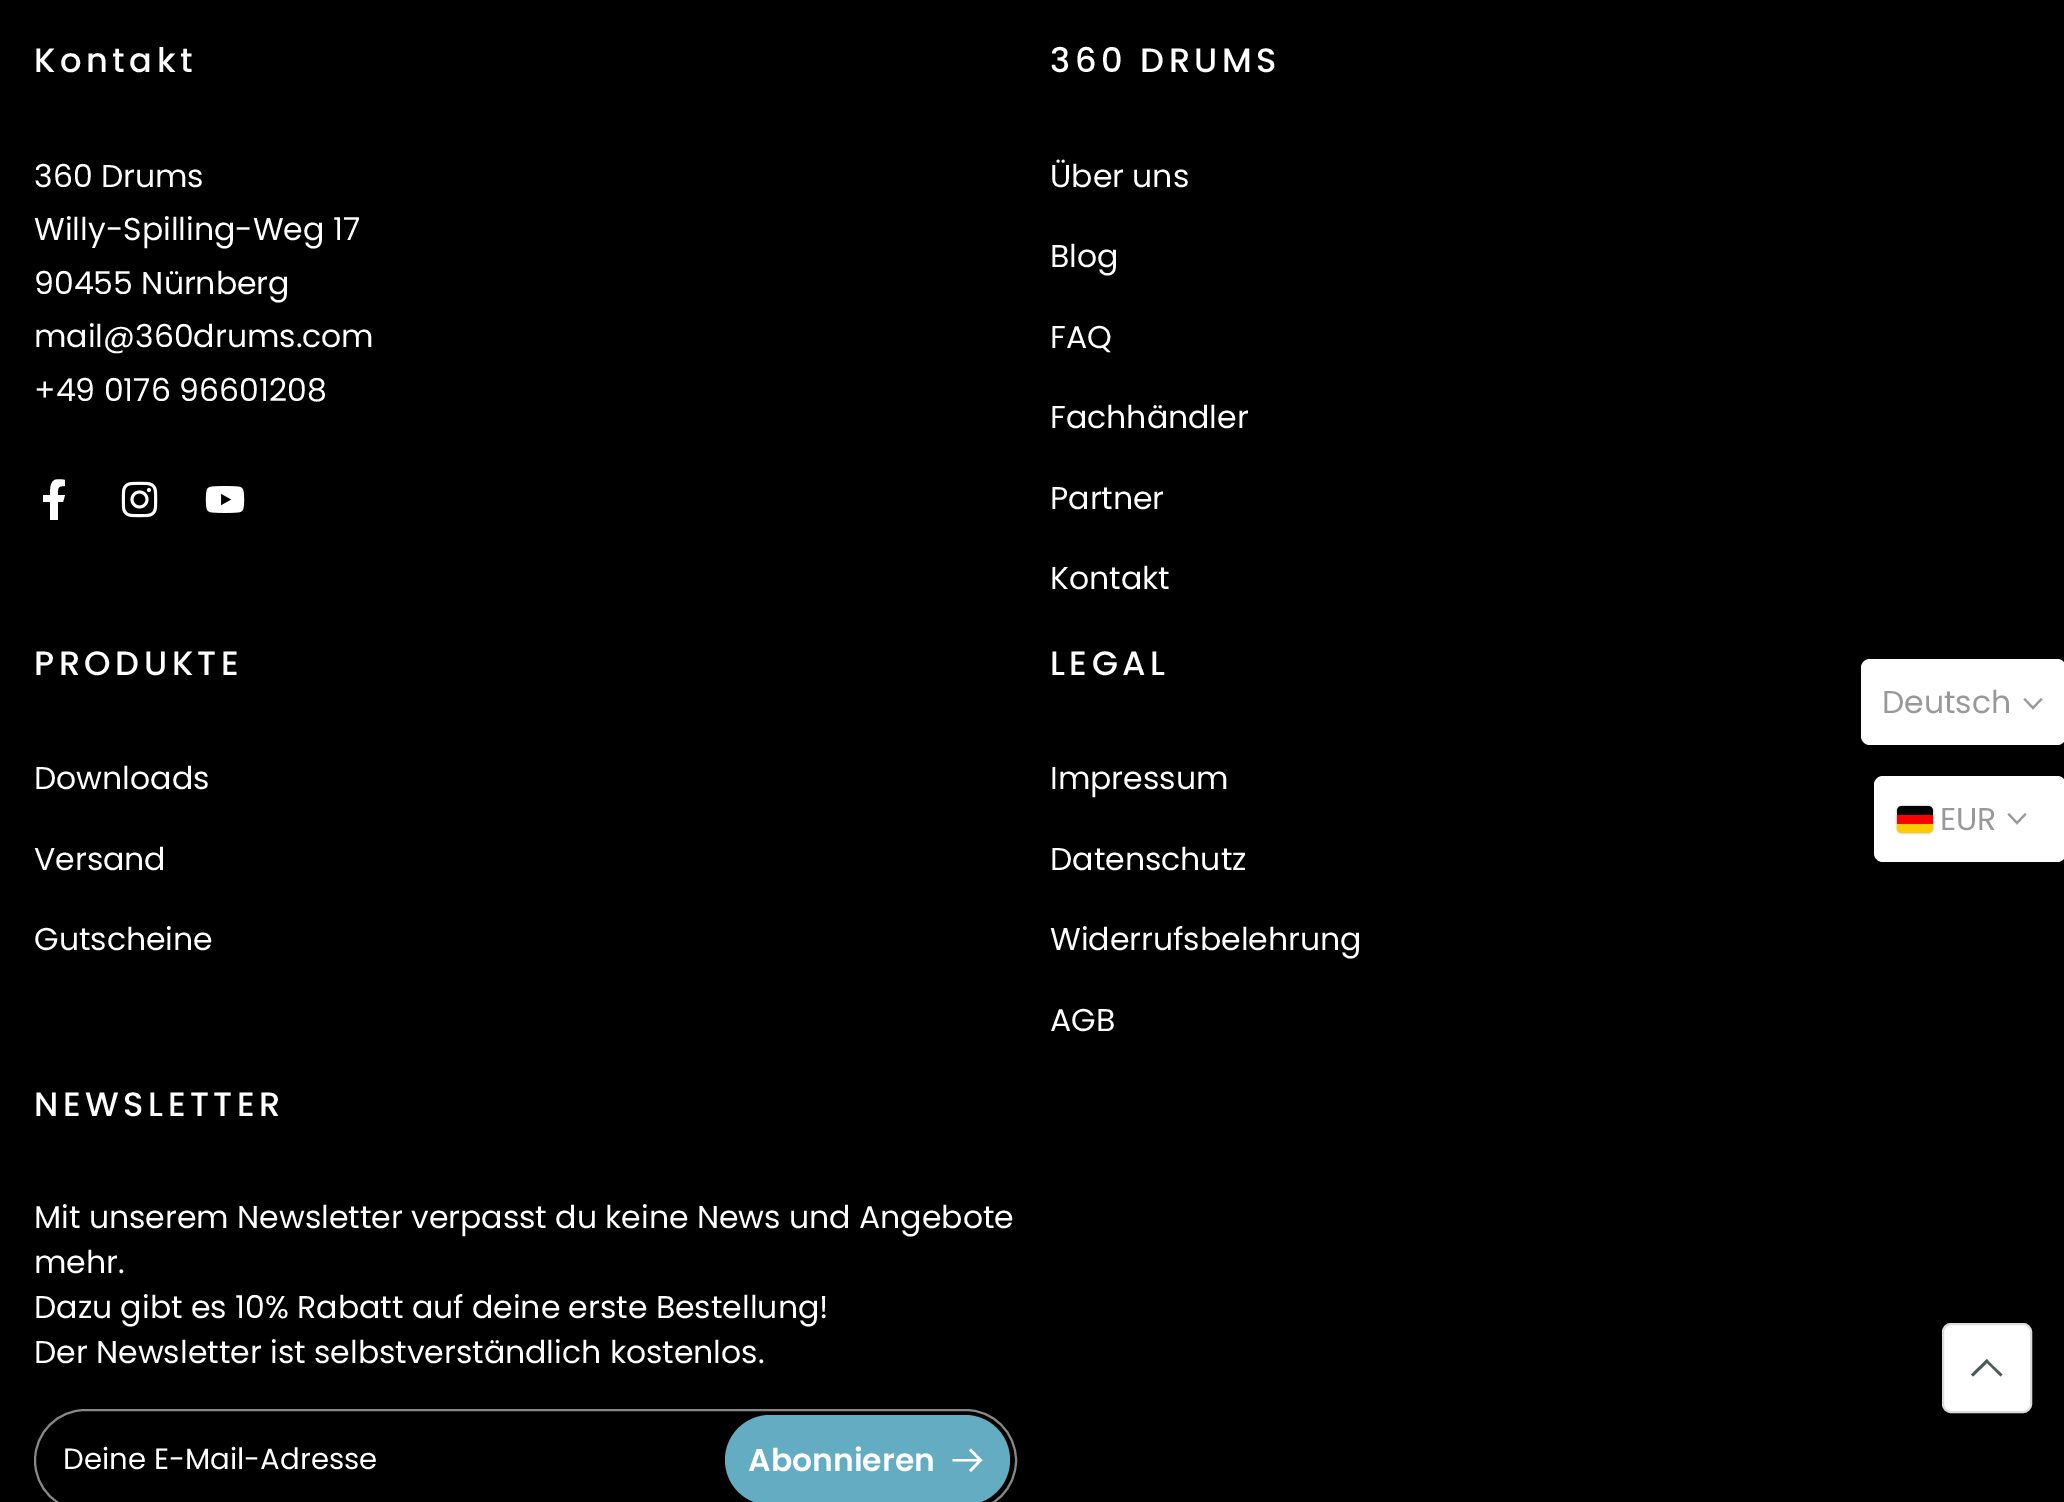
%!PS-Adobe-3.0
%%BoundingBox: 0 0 2064 1502
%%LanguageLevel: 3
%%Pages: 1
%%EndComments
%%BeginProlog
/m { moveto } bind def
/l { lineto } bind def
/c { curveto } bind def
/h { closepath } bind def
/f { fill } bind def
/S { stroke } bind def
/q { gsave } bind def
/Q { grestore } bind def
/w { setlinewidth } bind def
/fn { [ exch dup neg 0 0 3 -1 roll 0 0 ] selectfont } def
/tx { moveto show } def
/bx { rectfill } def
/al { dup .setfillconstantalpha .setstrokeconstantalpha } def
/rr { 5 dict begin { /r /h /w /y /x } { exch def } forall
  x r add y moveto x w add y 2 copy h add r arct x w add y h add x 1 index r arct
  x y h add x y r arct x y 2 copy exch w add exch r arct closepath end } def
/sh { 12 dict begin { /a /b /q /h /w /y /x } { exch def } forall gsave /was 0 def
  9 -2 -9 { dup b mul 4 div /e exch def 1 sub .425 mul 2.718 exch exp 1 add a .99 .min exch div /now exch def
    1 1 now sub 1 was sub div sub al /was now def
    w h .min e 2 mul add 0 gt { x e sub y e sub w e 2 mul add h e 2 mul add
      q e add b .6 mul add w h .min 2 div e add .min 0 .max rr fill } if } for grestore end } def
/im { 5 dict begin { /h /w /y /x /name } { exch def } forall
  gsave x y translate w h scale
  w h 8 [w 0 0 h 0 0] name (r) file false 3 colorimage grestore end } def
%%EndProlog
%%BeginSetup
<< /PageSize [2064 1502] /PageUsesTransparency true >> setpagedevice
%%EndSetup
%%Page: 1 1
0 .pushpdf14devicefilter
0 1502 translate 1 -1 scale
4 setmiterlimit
0 setgray
0 0 2064 1502 bx
/Poppins-Medium 33.75 fn
1 setgray
34 72 m 4.5 0 (Kontakt) ashow
/Poppins-Regular 31.5 fn
(360 Drums) 34 187 tx
(Willy-Spilling-Weg 17) 34 240 tx
(90455 Nürnberg) 34 294 tx
(mail@360drums.com) 34 347 tx
(+49 0176 96601208) 34 401 tx
63 502 m 65 495 l 58 495 l 58 488 57 486 65 486 c 65 480 l 52 477 50 482 50 495 c 43 495 l 43 502 l 50 502 l 50 520 l 58 520 l 58 502 l h f
(image0.raw) 121 481 37 37 im
(image1.raw) 205 486 40 27 im
/Poppins-Medium 33.75 fn
1050 72 m 4.5 0 (360 DRUMS) ashow
/Poppins-Regular 31.5 fn
(Über uns) 1050 187 tx
(Blog) 1050 267 tx
(FAQ) 1050 348 tx
(Fachhändler) 1050 428 tx
(Partner) 1050 509 tx
(Kontakt) 1050 589 tx
/Poppins-Medium 33.75 fn
34 675 m 4.5 0 (PRODUKTE) ashow
/Poppins-Regular 31.5 fn
(Downloads) 34 789 tx
(Versand) 34 870 tx
(Gutscheine) 34 950 tx
/Poppins-Medium 33.75 fn
1050 675 m 4.5 0 (LEGAL) ashow
/Poppins-Regular 31.5 fn
(Impressum) 1050 789 tx
(Datenschutz) 1050 870 tx
(Widerrufsbelehrung) 1050 950 tx
(AGB) 1050 1031 tx
/Poppins-Medium 33.75 fn
34 1116 m 4.5 0 (NEWSLETTER) ashow
/Poppins-Regular 31.5 fn
(Mit unserem Newsletter verpasst du keine News und Angebote) 34 1228 tx
(mehr.) 34 1273 tx
(Dazu gibt es 10% Rabatt auf deine erste Bestellung!) 34 1318 tx
(Der Newsletter ist selbstverständlich kostenlos.) 34 1363 tx
0.529 setgray
2 w
35 1410 981 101 50.5 rr S
/Poppins-Regular 29.25 fn
1 setgray
(Deine E-Mail-Adresse) 63 1469 tx
0.392 0.675 0.757 setrgbcolor
725 1415 285 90 45 rr f
/Poppins-SemiBold 31.5 fn
1 setgray
(Abonnieren) 748 1471 tx
971 1448.5 m 969 1450.5 l 977.5 1459 l 952.5 1459 l 952.5 1461.5 l 977.5 1461.5 l 969 1470 l 971 1472 l 982.5 1460 l 981.5 1459.5 l h f
1861 659 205 86 9 rr f
/Poppins-Regular 31.5 fn
0.6 setgray
(Deutsch) 1882 713 tx
2.1 w
2 setlinecap
2041 699.5 m 2033 708 l 2025 699.5 l S
1 setgray
1874 776 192 86 9 rr f
q
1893 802 m 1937 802 l 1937 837 l 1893 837 l h 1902 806 m 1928 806 l 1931 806 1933 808 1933 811 c 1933 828 l 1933 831 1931 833 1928 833 c 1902 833 l 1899 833 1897 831 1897 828 c 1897 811 l 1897 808 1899 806 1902 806 c h eoclip newpath
0.6 setgray
1897 806 36 27 5 1 1 sh
Q
1 0.8 0 setrgbcolor
1897 824 m 1933 824 l 1933 828 l 1933 831 1931 833 1928 833 c 1902 833 l 1899 833 1897 831 1897 828 c h f
0 setgray
1902 806 m 1928 806 l 1931 806 1933 808 1933 811 c 1933 815 l 1897 815 l 1897 811 l 1897 808 1899 806 1902 806 c h f
1 0 0 setrgbcolor
1897 815 36 9 bx
0.6 setgray
(EUR) 1940 830 tx
2025 814.5 m 2017 823 l 2009 814.5 l S
1 setgray
1943 1324 88 88 8 rr q f Q
0.867 setgray
2 w
0 setlinecap
S
0.302 0.349 0.349 setrgbcolor
1988.5 1361 m 1987 1359 l 1971 1374.5 l 1973 1376.5 l 1987 1363 l 2000.5 1376.5 l 2002.5 1374.5 l 1994.5 1367 l h f
.poppdf14devicefilter showpage
%%EOF
